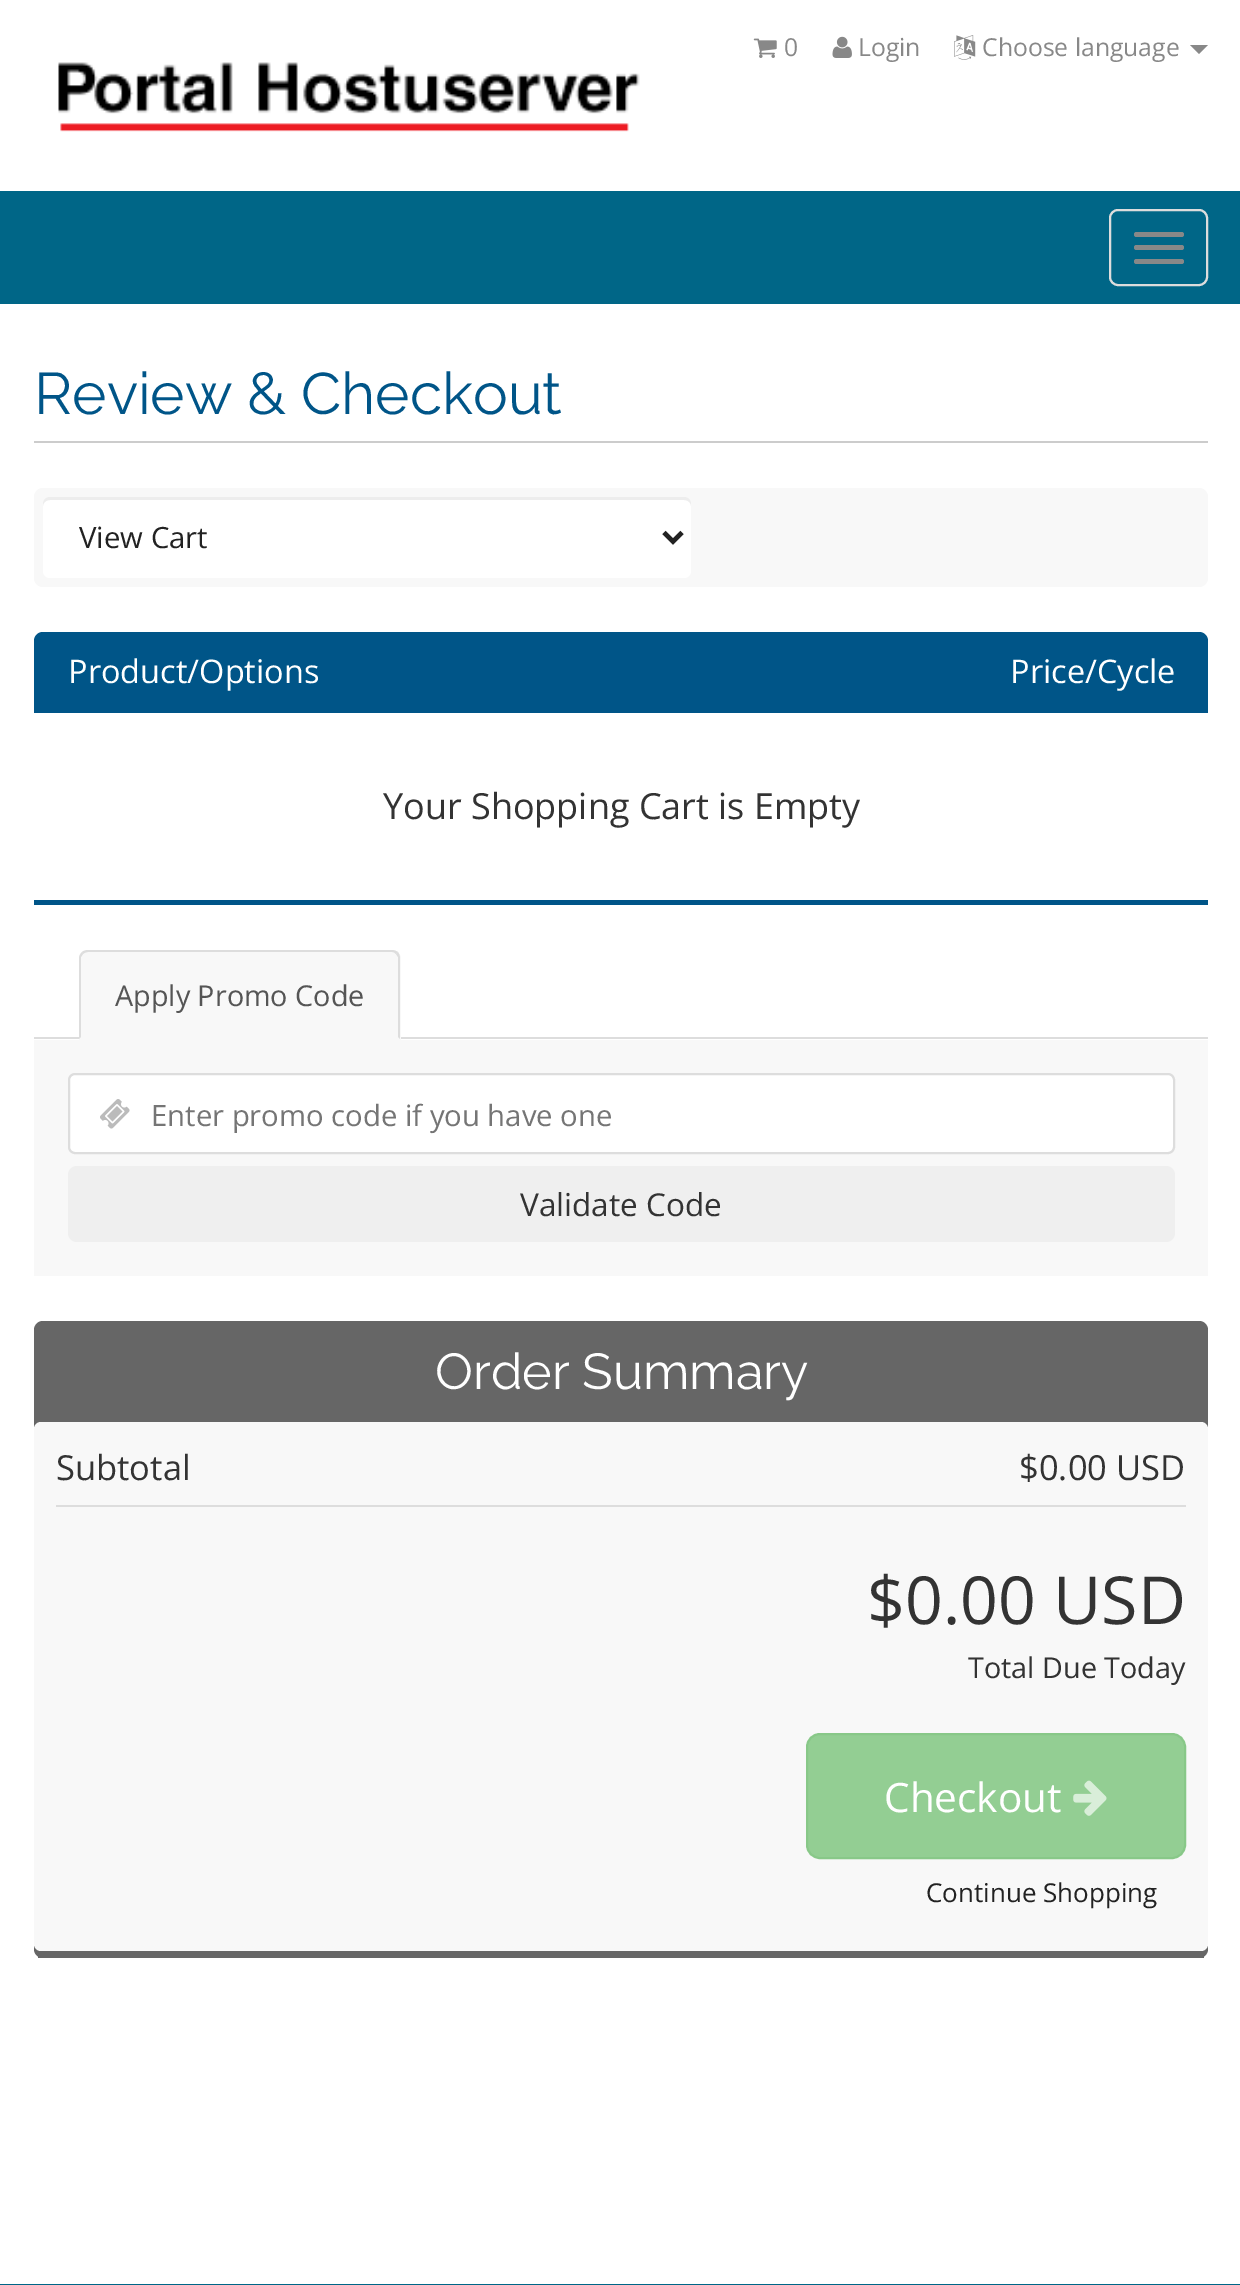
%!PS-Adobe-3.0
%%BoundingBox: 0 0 1240 2285
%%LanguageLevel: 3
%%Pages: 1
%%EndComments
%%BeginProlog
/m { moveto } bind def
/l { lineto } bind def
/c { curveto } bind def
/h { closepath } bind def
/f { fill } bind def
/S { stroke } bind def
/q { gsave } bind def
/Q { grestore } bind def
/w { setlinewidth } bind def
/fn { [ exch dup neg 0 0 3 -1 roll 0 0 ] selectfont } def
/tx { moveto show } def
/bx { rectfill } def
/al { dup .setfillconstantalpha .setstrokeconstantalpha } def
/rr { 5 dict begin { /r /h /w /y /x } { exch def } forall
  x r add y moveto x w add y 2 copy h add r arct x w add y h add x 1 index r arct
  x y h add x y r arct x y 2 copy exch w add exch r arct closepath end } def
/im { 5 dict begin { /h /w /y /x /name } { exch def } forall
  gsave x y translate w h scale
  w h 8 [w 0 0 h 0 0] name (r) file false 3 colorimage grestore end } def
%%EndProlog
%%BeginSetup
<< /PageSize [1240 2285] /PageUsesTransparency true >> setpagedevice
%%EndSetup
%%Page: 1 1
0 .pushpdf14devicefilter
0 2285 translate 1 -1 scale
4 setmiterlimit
1 setgray
0 0 1240 2285 bx
(image0.raw) 753 38 24 20 im
/OpenSans-Regular 24.75 fn
0.533 setgray
(0) 784 56 tx
(image1.raw) 832 36 20 22 im
(Login) 858 56 tx
(image2.raw) 954 35 22 25 im
(Choose language) 982 56 tx
1190 45 m 1208 45 l 1199 54 l h f
(image3.raw) 58 62 582 70 im
0 0.4 0.529 setrgbcolor
0 191 1240 113 bx
0.867 setgray
2 w
1110 210 97 75 8 rr S
0.533 setgray
1134 232 50 5 2.5 rr f
1134 245 50 5 2.5 rr f
1134 259 50 5 2.5 rr f
0.8 setgray
34 441 1174 2 bx
/Raleway-Regular 58.5 fn
0 0.333 0.533 setrgbcolor
(Review & Checkout) 34 414 tx
0.973 setgray
34 488 1174 99 9 rr f
1 setgray
43 497 648 81 7 rr f
0.07 al
0 setgray
50 500 m 684 500 l 688 500 691 503 691 506 c 691 504 l 691 500 688 497 684 497 c 50 497 l 46 497 43 500 43 504 c 43 506 l 43 503 46 500 50 500 c h f
1 al
0.133 setgray
4.5 w
664 532.5 m 673 541.5 l 682 532.5 l S
/OpenSans-Regular 29.25 fn
(View Cart) 79 548 tx
0 0.333 0.533 setrgbcolor
43 632 m 1199 632 l 1204 632 1208 636 1208 641 c 1208 713 l 34 713 l 34 641 l 34 636 38 632 43 632 c h f
/OpenSans-Regular 32.5 fn
1 setgray
(Product/Options) 68 683 tx
(Price/Cycle) 1010 683 tx
0 0.333 0.533 setrgbcolor
34 900 1174 5 bx
/OpenSans-Regular 36 fn
0.2 setgray
(Your Shopping Cart is Empty) 383 819 tx
0.867 setgray
34 1037 1174 2 bx
0.973 setgray
88 950 m 392 950 l 397 950 401 954 401 959 c 401 1040 l 79 1040 l 79 959 l 79 954 83 950 88 950 c h f
0.867 setgray
88 950 m 86 950 83 951 82 952 c 83 954 l 84 953 86 952 88 952 c 392 952 l 394 952 395 953 396 954 c 398 952 l 396 951 394 950 392 950 c h f
400 1039 m 400 958 l 400 956 399 954 398 952 c 396 954 l 398 957 l 398 1037 l h f
82 952 m 80 954 79 956 79 958 c 79 1039 l 81 1037 l 81 957 l 83 954 l h f
/OpenSans-Regular 28.75 fn
0.333 setgray
(Apply Promo Code) 115 1006 tx
0.973 setgray
34 1040 1174 236 bx
1 setgray
69 1074 1105 79 6 rr q f Q
0.867 setgray
2 w
S
(image4.raw) 100 1099 30 30 im
/OpenSans-Regular 29.25 fn
0.459 setgray
(Enter promo code if you have one) 151 1126 tx
0.937 setgray
68 1166 1107 76 9 rr f
/OpenSans-Regular 31.5 fn
0.2 setgray
(Validate Code) 520 1216 tx
0.4 setgray
34 1321 1174 637 9 rr f
38 1956 1166 2 bx
/Raleway-Regular 50.5 fn
1 setgray
(Order Summary) 435 1389 tx
0.973 setgray
34 1422 1174 529 7 rr f
0.867 setgray
56 1505 1130 2 bx
/OpenSans-Regular 34.5 fn
0.2 setgray
(Subtotal) 56 1480 tx
($0.00 USD) 1019 1480 tx
/OpenSans-Regular 66.25 fn
($0.00 USD) 867 1624 tx
/OpenSans-Regular 28.75 fn
(Total Due Today) 968 1678 tx
0.576 0.808 0.576 setrgbcolor
807 1734 378 124 13 rr q f Q
0.533 0.784 0.533 setrgbcolor
S
/OpenSans-Regular 40.5 fn
1 setgray
(Checkout) 884 1812 tx
(image5.raw) 1073 1780 34 36 im
/OpenSans-Regular 26 fn
0.133 setgray
(Continue Shopping) 926 1902 tx
0 0.4 0.529 setrgbcolor
0 2284 1240 1 bx
.poppdf14devicefilter showpage
%%EOF
